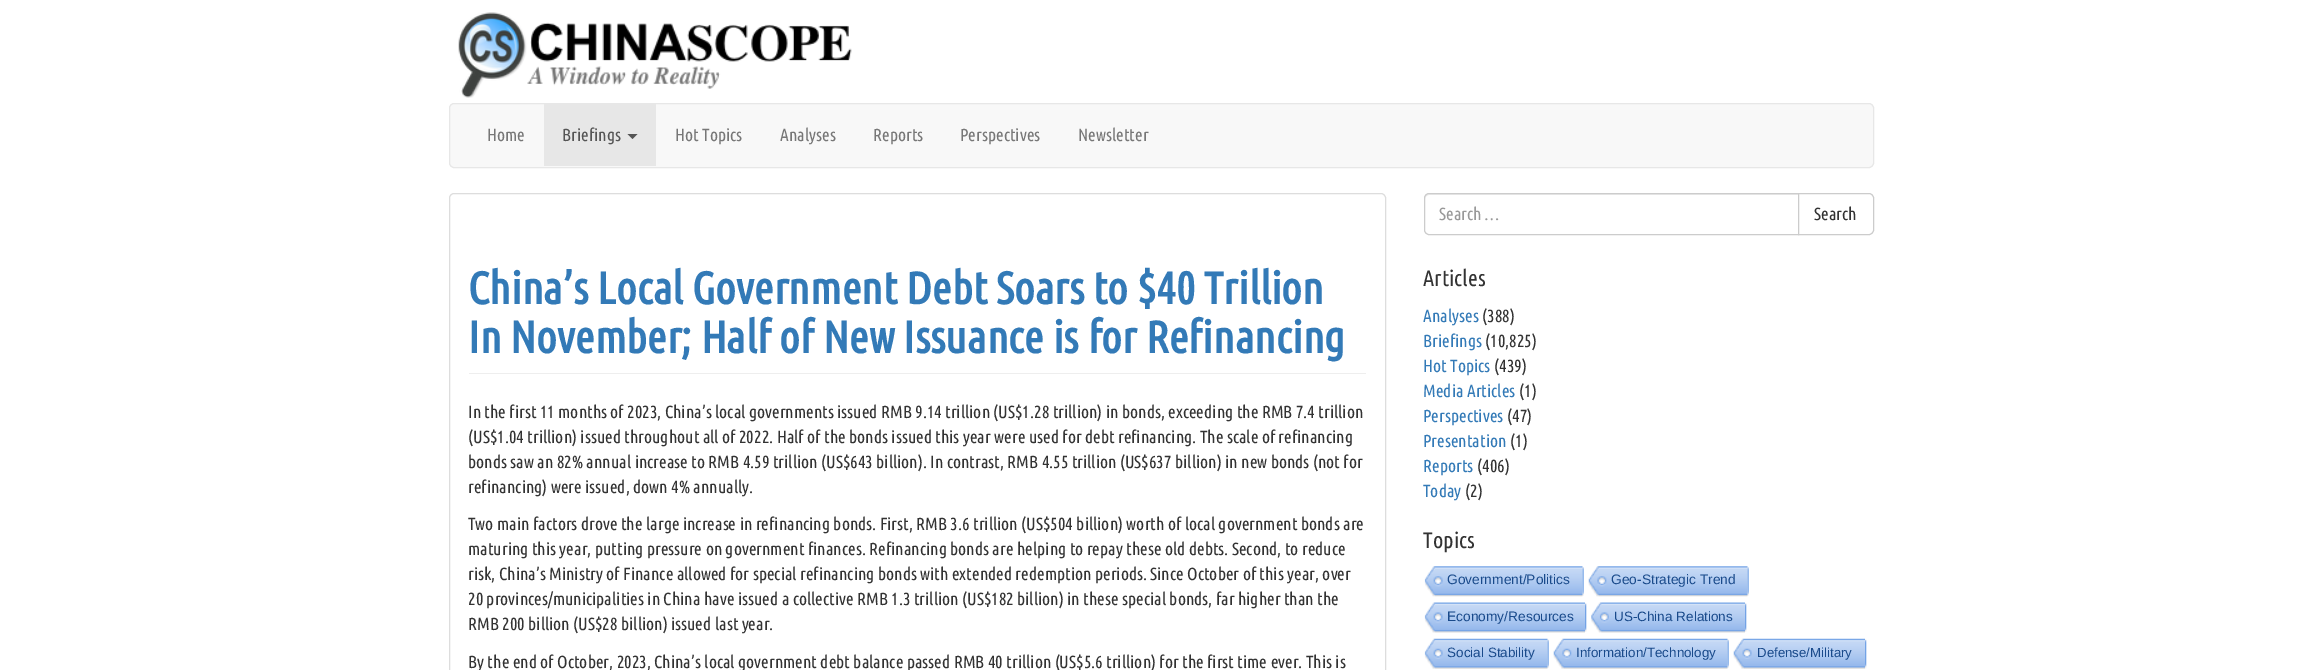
%!PS-Adobe-3.0
%%BoundingBox: 0 0 2321 670
%%LanguageLevel: 3
%%Pages: 1
%%EndComments
%%BeginProlog
/m { moveto } bind def
/l { lineto } bind def
/c { curveto } bind def
/h { closepath } bind def
/f { fill } bind def
/S { stroke } bind def
/q { gsave } bind def
/Q { grestore } bind def
/fn { [ exch dup neg 0 0 3 -1 roll 0 0 ] selectfont } def
/tx { moveto show } def
/bx { rectfill } def
/rr { 5 dict begin { /r /h /w /y /x } { exch def } forall
  x r add y moveto x w add y 2 copy h add r arct x w add y h add x 1 index r arct
  x y h add x y r arct x y 2 copy exch w add exch r arct closepath end } def
/im { 5 dict begin { /h /w /y /x /name } { exch def } forall
  gsave x y translate w h scale
  w h 8 [w 0 0 h 0 0] name (r) file false 3 colorimage grestore end } def
%%EndProlog
%%BeginSetup
<< /PageSize [2321 670] >> setpagedevice
%%EndSetup
%%Page: 1 1
0 670 translate 1 -1 scale
4 setmiterlimit
1 setgray
0 0 2321 670 bx
(image0.raw) 458 12 394 86 im
0.973 setgray
449.5 103.5 1424 64 4.5 rr q f Q
0.906 setgray
S
/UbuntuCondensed-Regular 17.5 fn
0.467 setgray
(Home) 487 141 tx
0.906 setgray
544 104 112 62 bx
0.333 setgray
(Briefings) 562 141 tx
627.5 134 m 637.5 134 l 632.5 139 l h f
0.467 setgray
(Hot Topics) 675 141 tx
(Analyses) 780 141 tx
(Reports) 873 141 tx
(Perspectives) 960 141 tx
(Newsletter) 1078 141 tx
0.867 setgray
449.5 193.5 936 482 4.5 rr S
0.933 setgray
469 373 897 1 bx
/UbuntuCondensed-Bold 45 fn
0.2 0.478 0.718 setrgbcolor
(China’s Local Government Debt Soars to $40 Trillion) 468 304 tx
(In November; Half of New Issuance is for Refinancing) 468 353 tx
/UbuntuCondensed-Regular 17.5 fn
0.2 setgray
(In the first 11 months of 2023, China’s local governments issued RMB 9.14 trillion \(US$1.28 trillion\) in bonds, exceeding the RMB 7.4 trillion) 468 418 tx
(\(US$1.04 trillion\) issued throughout all of 2022. Half of the bonds issued this year were used for debt refinancing. The scale of refinancing) 468 443 tx
(bonds saw an 82% annual increase to RMB 4.59 trillion \(US$643 billion\). In contrast, RMB 4.55 trillion \(US$637 billion\) in new bonds \(not for) 468 468 tx
(refinancing\) were issued, down 4% annually.) 468 493 tx
(Two main factors drove the large increase in refinancing bonds. First, RMB 3.6 trillion \(US$504 billion\) worth of local government bonds are) 468 530 tx
(maturing this year, putting pressure on government finances. Refinancing bonds are helping to repay these old debts. Second, to reduce) 468 555 tx
(risk, China’s Ministry of Finance allowed for special refinancing bonds with extended redemption periods. Since October of this year, over) 468 580 tx
(20 provinces/municipalities in China have issued a collective RMB 1.3 trillion \(US$182 billion\) in these special bonds, far higher than the) 468 605 tx
(RMB 200 billion \(US$28 billion\) issued last year.) 468 630 tx
(By the end of October, 2023, China’s local government debt balance passed RMB 40 trillion \(US$5.6 trillion\) for the first time ever. This is) 468 668 tx
0.925 setgray
1429 195 m 1798 195 l 1798 194 l 1429 194 l 1426 194 1425 196 1425 199 c 1425 197 1427 195 1429 195 c h f
0.8 setgray
1429 193.5 m 1798.5 193.5 l 1798.5 234.5 l 1429 234.5 l 1426.5 234.5 1424.5 232.5 1424.5 230 c 1424.5 198 l 1424.5 195.5 1426.5 193.5 1429 193.5 c h S
0.6 setgray
(Search …) 1439 220 tx
1 setgray
1798.5 193.5 m 1869 193.5 l 1871.5 193.5 1873.5 195.5 1873.5 198 c 1873.5 230 l 1873.5 232.5 1871.5 234.5 1869 234.5 c 1798.5 234.5 l h q f Q
0.8 setgray
S
0.2 setgray
(Search) 1814 220 tx
/UbuntuCondensed-Regular 22.5 fn
(Articles) 1423 286 tx
/UbuntuCondensed-Regular 17.5 fn
0.2 0.478 0.718 setrgbcolor
(Analyses) 1423 322 tx
0.2 setgray
(\(388\)) 1482 322 tx
0.2 0.478 0.718 setrgbcolor
(Briefings) 1423 347 tx
0.2 setgray
(\(10,825\)) 1485 347 tx
0.2 0.478 0.718 setrgbcolor
(Hot Topics) 1423 372 tx
0.2 setgray
(\(439\)) 1494 372 tx
0.2 0.478 0.718 setrgbcolor
(Media Articles) 1423 397 tx
0.2 setgray
(\(1\)) 1519 397 tx
0.2 0.478 0.718 setrgbcolor
(Perspectives) 1423 422 tx
0.2 setgray
(\(47\)) 1507 422 tx
0.2 0.478 0.718 setrgbcolor
(Presentation) 1423 447 tx
0.2 setgray
(\(1\)) 1510 447 tx
0.2 0.478 0.718 setrgbcolor
(Reports) 1423 472 tx
0.2 setgray
(\(406\)) 1477 472 tx
0.2 0.478 0.718 setrgbcolor
(Today) 1423 497 tx
0.2 setgray
(\(2\)) 1465 497 tx
/UbuntuCondensed-Regular 22.5 fn
(Topics) 1423 548 tx
(image1.raw) 1424 566 159 31 im
/LiberationSans-Regular 13.75 fn
0.098 0.29 0.545 setrgbcolor
(Government/Politics) 1447 584 tx
(image2.raw) 1582 567 2 29 im
(image3.raw) 1588 566 160 31 im
(Geo-Strategic Trend) 1611 584 tx
(image2.raw) 1747 567 2 29 im
(image4.raw) 1424 602 161 31 im
(Economy/Resources) 1447 621 tx
(image5.raw) 1585 603 2 29 im
(image6.raw) 1591 602 154 31 im
/LiberationSans-Regular 13.5 fn
(US-China Relations) 1614 621 tx
(image5.raw) 1745 603 2 29 im
(image7.raw) 1424 638 124 31 im
(Social Stability) 1447 657 tx
(image8.raw) 1547 639 2 29 im
(image9.raw) 1553 638 175 31 im
/LiberationSans-Regular 13.4 fn
(Information/Technology) 1576 657 tx
(image8.raw) 1727 639 2 29 im
(image10.raw) 1733 638 132 31 im
/LiberationSans-Regular 13.25 fn
(Defense/Military) 1757 657 tx
(image11.raw) 1865 639 2 30 im
showpage
%%EOF
